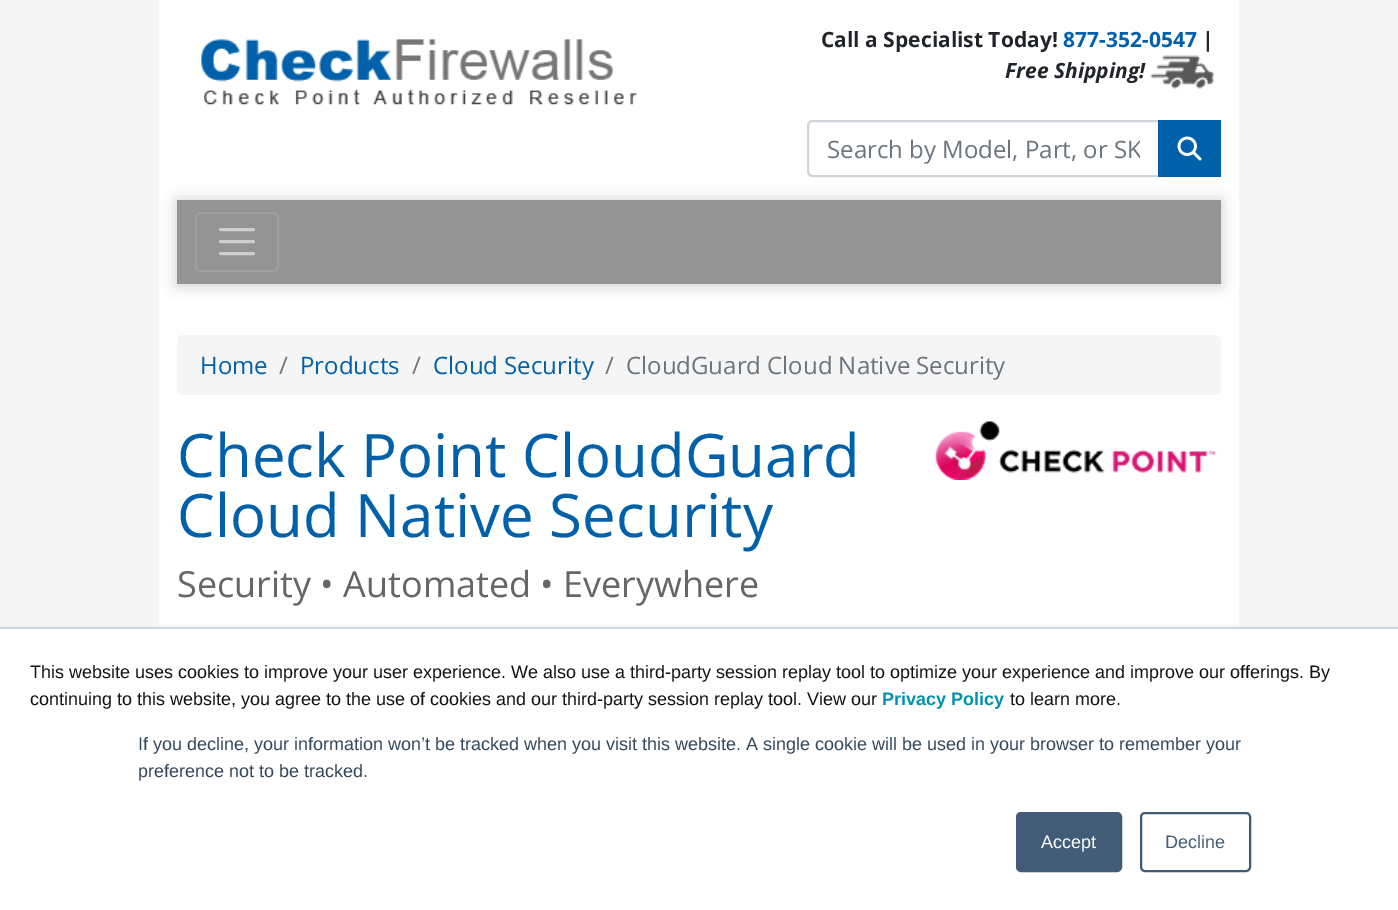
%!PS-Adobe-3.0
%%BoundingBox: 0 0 1398 910
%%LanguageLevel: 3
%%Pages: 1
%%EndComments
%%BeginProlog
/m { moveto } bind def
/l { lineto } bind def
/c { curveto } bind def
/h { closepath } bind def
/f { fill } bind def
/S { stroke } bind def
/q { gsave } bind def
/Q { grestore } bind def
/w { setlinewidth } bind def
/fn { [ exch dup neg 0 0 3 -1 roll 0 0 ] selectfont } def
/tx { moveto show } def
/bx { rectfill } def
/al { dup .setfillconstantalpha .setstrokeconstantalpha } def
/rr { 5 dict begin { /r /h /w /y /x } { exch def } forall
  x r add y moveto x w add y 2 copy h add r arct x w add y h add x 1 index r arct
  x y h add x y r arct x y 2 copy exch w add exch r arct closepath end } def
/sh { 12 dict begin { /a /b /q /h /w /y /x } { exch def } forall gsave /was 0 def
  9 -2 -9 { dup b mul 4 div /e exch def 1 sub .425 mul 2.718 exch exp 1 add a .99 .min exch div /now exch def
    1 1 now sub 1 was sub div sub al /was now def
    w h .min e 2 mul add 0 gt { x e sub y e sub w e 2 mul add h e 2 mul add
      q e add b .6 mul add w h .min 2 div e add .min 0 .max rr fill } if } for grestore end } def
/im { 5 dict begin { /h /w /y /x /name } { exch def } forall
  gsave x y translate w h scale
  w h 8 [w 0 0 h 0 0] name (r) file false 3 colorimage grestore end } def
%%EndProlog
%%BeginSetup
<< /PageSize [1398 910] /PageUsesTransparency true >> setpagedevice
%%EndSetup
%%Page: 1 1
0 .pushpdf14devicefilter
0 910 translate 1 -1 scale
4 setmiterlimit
0.961 setgray
0 0 1398 910 bx
1 setgray
159 0 1080 627 bx
(image0.raw) 201 39 437 66 im
/OpenSans-Bold 21 fn
0.129 0.145 0.161 setrgbcolor
(Call a Specialist Today!) 821 47 tx
0 0.38 0.667 setrgbcolor
(877-352-0547) 1063 47 tx
0.129 0.145 0.161 setrgbcolor
(|) 1202 47 tx
/OpenSans-BoldItalic 21 fn
(Free Shipping!) 1005 78 tx
(image1.raw) 1150 55 64 34 im
0.808 0.831 0.855 setrgbcolor
2 w
813 121 m 1159 121 l 1159 176 l 813 176 l 810 176 808 174 808 171 c 808 126 l 808 123 810 121 813 121 c h S
q
827 132 313 33 rectclip
/OpenSans-Regular 24 fn
0.424 0.459 0.49 setrgbcolor
(Search by Model, Part, or SK) 827 158 tx
Q
0 0.38 0.667 setrgbcolor
1158 120 63 57 bx
(image2.raw) 1177 136 25 25 im
0 setgray
177 201 1044 84 0 7.5 0.2 sh
0.58 setgray
177 200 1044 84 bx
0.624 setgray
196 213 82 58 5 rr S
0.812 setgray
3 w
1 setlinecap
220.5 229.5 m 253.5 229.5 l 220.5 241.5 m 253.5 241.5 l 220.5 253.5 m 253.5 253.5 l S
0.961 setgray
177 335 1044 60 6 rr f
/OpenSans-Regular 24 fn
0 0.38 0.667 setrgbcolor
(Home) 200 374 tx
0.424 0.459 0.49 setrgbcolor
(/) 279 374 tx
0 0.38 0.667 setrgbcolor
(Products) 300 374 tx
0.424 0.459 0.49 setrgbcolor
(/) 412 374 tx
0 0.38 0.667 setrgbcolor
(Cloud Security) 433 374 tx
0.424 0.459 0.49 setrgbcolor
(/) 605 374 tx
(CloudGuard Cloud Native Security) 626 374 tx
/OpenSans-Regular 60 fn
0 0.38 0.667 setrgbcolor
(Check Point CloudGuard) 177 477 tx
(Cloud Native Security) 177 537 tx
/OpenSans-Regular 36 fn
0.4 setgray
(Security • Automated • Everywhere) 177 597 tx
(image3.raw) 935 421 281 59 im
0.918 0.941 0.965 setrgbcolor
0 626 1398 283 0 2 1 sh
1 setgray
0 629 1398 281 bx
0.796 0.839 0.886 setrgbcolor
0 627 1398 2 bx
/LiberationSans-Regular 18 fn
0.071 setgray
(This website uses cookies to improve your user experience. We also use a third-party session replay tool to optimize your experience and improve our offerings. By) 30 678 tx
(continuing to this website, you agree to the use of cookies and our third-party session replay tool. View our) 30 705 tx
/LiberationSans-Bold 18 fn
0 0.569 0.682 setrgbcolor
(Privacy Policy) 882 705 tx
/LiberationSans-Regular 18 fn
0.071 setgray
(to learn more.) 1010 705 tx
0.2 0.278 0.357 setrgbcolor
(If you decline, your information won’t be tracked when you visit this website. A single cookie will be used in your browser to remember your) 138 750 tx
(preference not to be tracked.) 138 777 tx
0.259 0.357 0.463 setrgbcolor
1017 813 104 58 4 rr q f Q
2 w
0 setlinecap
S
1 setgray
(Accept) 1041 848 tx
0.259 0.357 0.463 setrgbcolor
1141 813 109 58 4 rr S
(Decline) 1165 848 tx
.poppdf14devicefilter showpage
%%EOF
